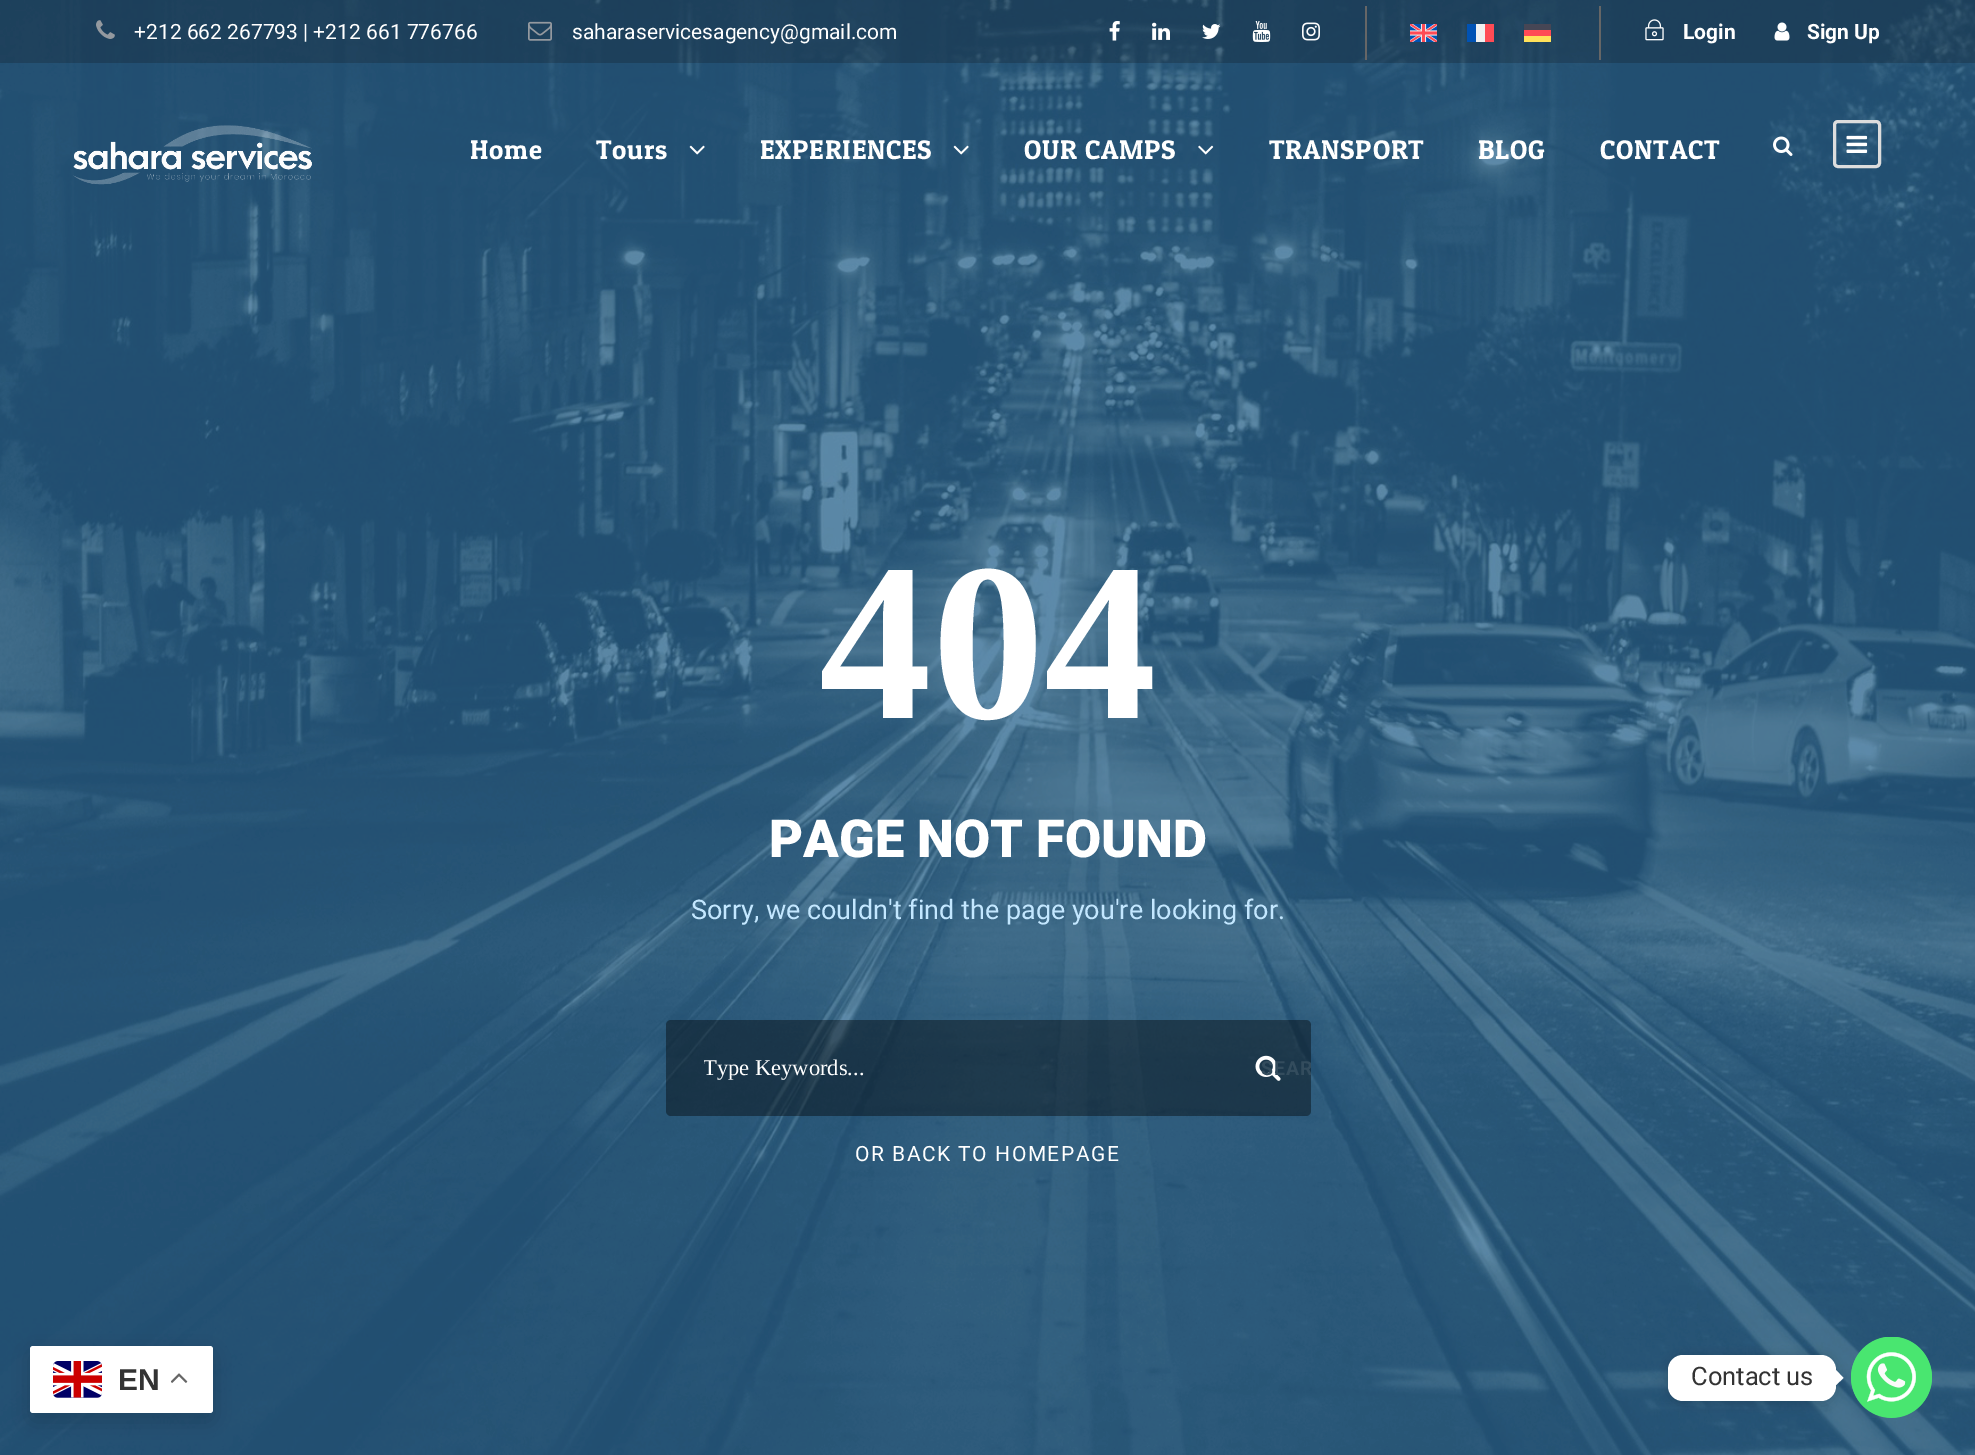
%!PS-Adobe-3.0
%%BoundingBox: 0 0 1975 1455
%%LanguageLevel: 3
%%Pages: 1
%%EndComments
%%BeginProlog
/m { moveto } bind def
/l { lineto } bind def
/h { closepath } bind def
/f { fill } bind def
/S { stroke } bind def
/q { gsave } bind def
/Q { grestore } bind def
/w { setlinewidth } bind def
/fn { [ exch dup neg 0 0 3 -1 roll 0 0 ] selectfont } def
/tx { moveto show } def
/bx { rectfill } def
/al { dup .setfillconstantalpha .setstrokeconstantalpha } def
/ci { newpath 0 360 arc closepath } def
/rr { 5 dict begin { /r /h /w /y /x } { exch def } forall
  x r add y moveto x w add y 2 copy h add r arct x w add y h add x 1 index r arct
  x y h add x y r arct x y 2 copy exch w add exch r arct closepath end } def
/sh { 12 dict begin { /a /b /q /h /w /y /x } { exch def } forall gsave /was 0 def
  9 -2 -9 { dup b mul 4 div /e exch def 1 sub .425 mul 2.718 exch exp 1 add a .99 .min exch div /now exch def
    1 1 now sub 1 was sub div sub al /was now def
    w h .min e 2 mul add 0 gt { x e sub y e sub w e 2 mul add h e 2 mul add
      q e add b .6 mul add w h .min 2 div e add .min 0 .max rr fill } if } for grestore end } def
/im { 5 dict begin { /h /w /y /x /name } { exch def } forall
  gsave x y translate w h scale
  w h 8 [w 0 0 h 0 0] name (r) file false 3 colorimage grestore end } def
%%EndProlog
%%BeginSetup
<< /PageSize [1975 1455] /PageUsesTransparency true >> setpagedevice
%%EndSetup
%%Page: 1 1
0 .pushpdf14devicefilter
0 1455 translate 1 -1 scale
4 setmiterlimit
0.137 0.38 0.557 setrgbcolor
0 0 1975 1455 bx
(image16.raw) 0 0 1975 1455 im
0.2 al
0.039 0.02 0.02 setrgbcolor
0 0 1975 63 bx
1 al
(image0.raw) 96 20 19 19 im
/Roboto-Regular 21 fn
1 setgray
(+212 662 267793 | +212 661 776766) 134 39 tx
(image1.raw) 528 21 24 20 im
(saharaservicesagency@gmail.com) 572 39 tx
(image2.raw) 1109 21 11 20 im
(image3.raw) 1152 22 18 18 im
(image4.raw) 1202 24 19 15 im
(image5.raw) 1252 21 19 21 im
(image6.raw) 1302 22 18 19 im
0.4 setgray
1365 6 2 54 bx
(image7.raw) 1410 24 27 18 im
0 0.322 0.706 setrgbcolor
1467 24 9 18 bx
0.941 setgray
1476 24 9 18 bx
1 0.294 0.333 setrgbcolor
1485 24 9 18 bx
0.275 0.275 0.333 setrgbcolor
1524 24 27 6 bx
1 0.294 0.333 setrgbcolor
1524 30 27 6 bx
1 0.882 0.353 setrgbcolor
1524 36 27 6 bx
0.4 setgray
1599 6 2 54 bx
(image8.raw) 1645 19 19 22 im
/Roboto-Bold 21 fn
1 setgray
(Login) 1683 39 tx
(image9.raw) 1774 22 16 19 im
(Sign Up) 1807 39 tx
(image10.raw) 73 125 239 60 im
/PatuaOne-Regular 27 fn
470 159 m 0.75 0 (Home) ashow
596 159 m 0.75 0 (Tours) ashow
(image11.raw) 689 145 16 10 im
760 159 m 0.75 0 (EXPERIENCES) ashow
(image12.raw) 953 145 16 10 im
1024 159 m 0.75 0 (OUR CAMPS) ashow
(image13.raw) 1198 145 16 10 im
1269 159 m 0.75 0 (TRANSPORT) ashow
1478 159 m 0.75 0 (BLOG) ashow
1600 159 m 0.75 0 (CONTACT) ashow
(image14.raw) 1773 136 20 20 im
0.867 setgray
3 w
1834.5 121.5 45 45 3.5 rr S
(image15.raw) 1846 135 22 18 im
/LiberationSerif-Bold 225 fn
1 setgray
(404) 819 718 tx
/Roboto-Black 52.5 fn
(PAGE NOT FOUND) 769 857 tx
/Roboto-Regular 27 fn
0.765 0.906 1 setrgbcolor
(Sorry, we couldn't find the page you're looking for.) 691 919 tx
0.4 al
0 setgray
666 1020 645 96 5 rr f
q
704 1056 517 26 rectclip
/LiberationSerif-Regular 22.5 fn
1 al
1 setgray
(Type Keywords...) 703 1075 tx
Q
1 al
(image17.raw) 1255 1055 26 26 im
q
1212 1020 99 96 rectclip
/Roboto-Bold 19.5 fn
0.2 0.298 0.365 setrgbcolor
1261 1075 m 1 0 (SEAR) ashow
Q
/Roboto-Regular 21 fn
1 setgray
855 1161 m 1.5 0 (OR BACK TO HOMEPAGE) ashow
0 setgray
30 1353 183 68 3 11 0.15 sh
1 setgray
30 1346 183 67 3 rr f
(image18.raw) 53 1361 49 37 im
/LiberationSans-Bold 30 fn
0.2 setgray
(EN) 118 1390 tx
(image19.raw) 171 1373 17 10 im
0.286 0.902 0.439 setrgbcolor
1891.5 1377.5 40.5 ci f
(image20.raw) 1851 1337 81 81 im
0 setgray
1668 1356 168 47 15 6 0.15 sh
1 setgray
1668 1355 168 46 15 rr f
/Roboto-Regular 25.5 fn
0.2 setgray
(Contact us) 1691 1385 tx
1 setgray
1836 1385 m 1836 1370 l 1843.5 1378 l h f
.poppdf14devicefilter showpage
%%EOF
